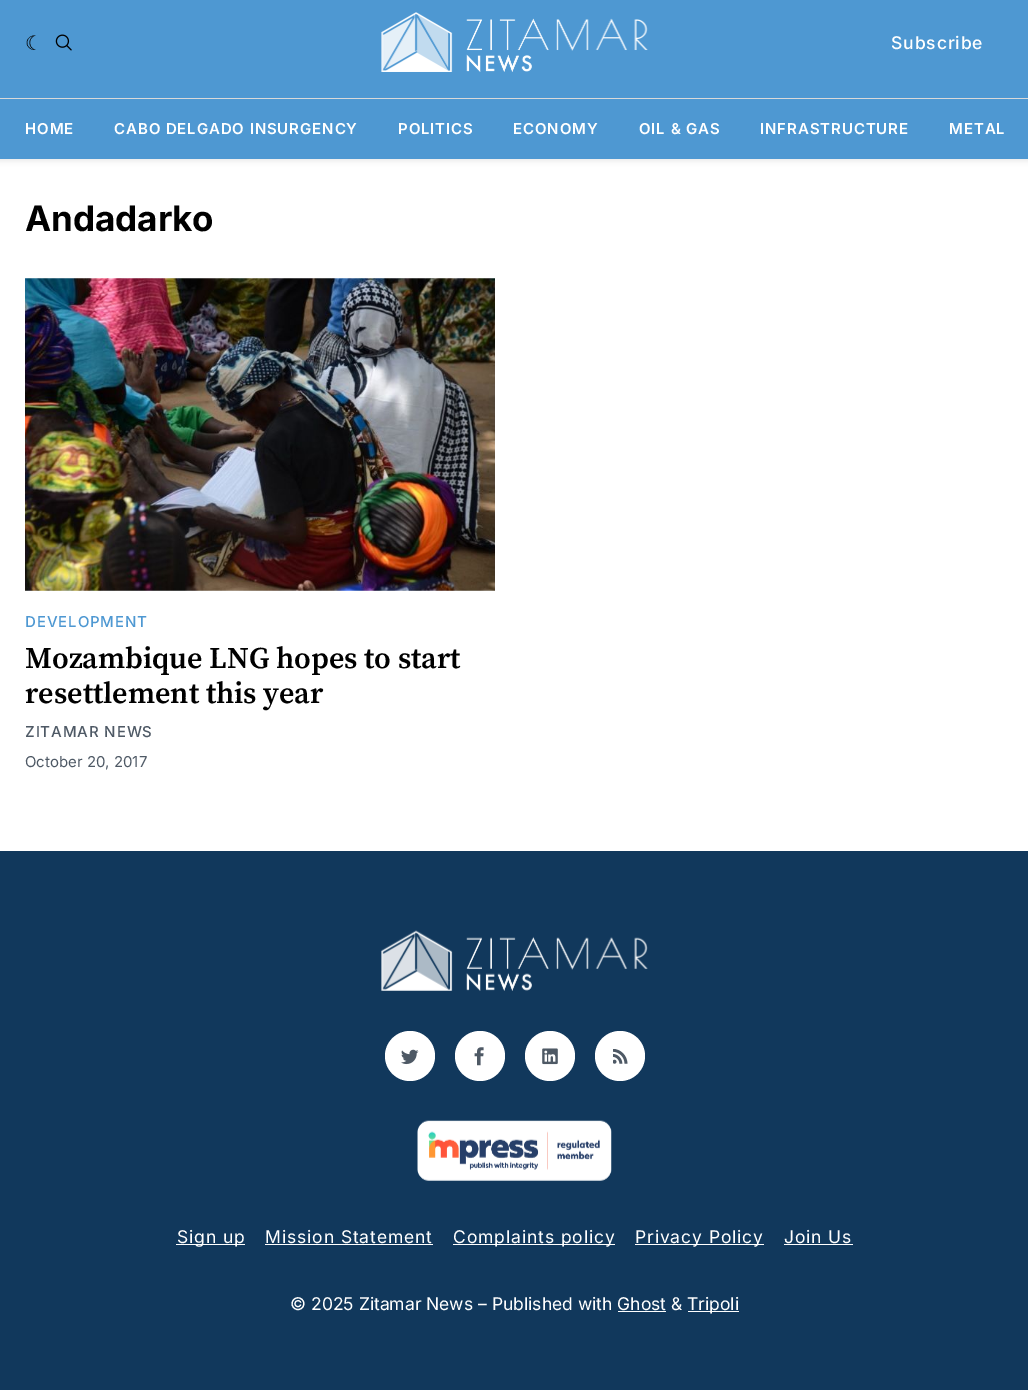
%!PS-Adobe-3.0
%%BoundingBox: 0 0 1028 1390
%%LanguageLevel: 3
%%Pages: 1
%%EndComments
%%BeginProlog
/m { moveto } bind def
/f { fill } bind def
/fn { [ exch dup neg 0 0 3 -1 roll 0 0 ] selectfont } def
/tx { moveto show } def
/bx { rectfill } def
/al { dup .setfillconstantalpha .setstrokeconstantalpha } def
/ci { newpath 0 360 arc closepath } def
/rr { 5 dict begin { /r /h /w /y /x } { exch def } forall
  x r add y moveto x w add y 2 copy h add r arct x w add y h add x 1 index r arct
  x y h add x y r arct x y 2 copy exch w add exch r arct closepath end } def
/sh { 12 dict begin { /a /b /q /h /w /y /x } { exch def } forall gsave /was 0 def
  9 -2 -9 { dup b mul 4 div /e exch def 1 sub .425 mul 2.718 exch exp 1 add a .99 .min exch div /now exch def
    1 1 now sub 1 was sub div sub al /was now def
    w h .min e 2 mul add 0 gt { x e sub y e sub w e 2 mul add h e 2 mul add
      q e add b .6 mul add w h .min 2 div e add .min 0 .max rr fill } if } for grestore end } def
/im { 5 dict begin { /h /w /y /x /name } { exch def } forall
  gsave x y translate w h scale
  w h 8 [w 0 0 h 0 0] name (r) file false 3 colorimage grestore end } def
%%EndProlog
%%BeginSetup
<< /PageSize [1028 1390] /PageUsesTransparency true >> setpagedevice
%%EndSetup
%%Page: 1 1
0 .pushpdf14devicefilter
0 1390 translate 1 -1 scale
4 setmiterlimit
1 setgray
0 0 1028 1390 bx
0 setgray
-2 -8 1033 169 0 2.5 0.08 sh
0.306 0.596 0.824 setrgbcolor
0 0 1028 159 bx
0.851 setgray
0 98 1028 1 bx
/DejaVuSans-Regular 20 fn
0 setgray
25 50 m 0.9 0 (☾) ashow
(image0.raw) 55 34 17 17 im
(image1.raw) 381 12 267 60 im
/Inter-Medium 17.5 fn
1 setgray
891 49 m 0.9 0 (Subscribe) ashow
/Inter-SemiBold 15 fn
25 134 m 0.9 0 (HOME) ashow
114 134 m 0.9 0 (CABO DELGADO INSURGENCY) ashow
398 134 m 0.9 0 (POLITICS) ashow
513 134 m 0.9 0 (ECONOMY) ashow
639 134 m 0.9 0 (OIL & GAS) ashow
760 134 m 0.9 0 (INFRASTRUCTURE) ashow
949 134 m 0.9 0 (METAL) ashow
/Inter-Bold 35 fn
0 setgray
(Andadarko) 25 231 tx
(image2.raw) 25 278 470 313 im
/Inter-Medium 15 fn
0.306 0.596 0.824 setrgbcolor
25 627 m 0.9 0 (DEVELOPMENT) ashow
/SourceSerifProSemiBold-SemiBold 30 fn
0 setgray
(Mozambique LNG hopes to start) 25 668 tx
(resettlement this year) 25 703 tx
/Inter-Medium 15 fn
0.306 0.349 0.396 setrgbcolor
25 737 m 0.9 0 (ZITAMAR NEWS) ashow
/Inter-Regular 15 fn
(October 20, 2017) 25 767 tx
0.067 0.22 0.361 setrgbcolor
0 851 1028 539 bx
(image3.raw) 381 930 267 61 im
1 setgray
410 1056 25 ci f
(image4.raw) 401 1049 18 16 im
480 1056 25 ci f
(image5.raw) 474 1047 10 19 im
550 1056 25 ci f
(image6.raw) 542 1048 16 17 im
620 1056 25 ci f
(image7.raw) 613 1049 15 15 im
(image8.raw) 417 1120 195 61 im
176 1244 69 1 bx
/Inter-Regular 17.5 fn
177 1243 m 0.9 0 (Sign up) ashow
265 1243 m 0.9 0 (Mission Statement) ashow
265 1244 168 1 bx
453 1244 162 1 bx
453 1243 m 0.9 0 (Complaints policy) ashow
635 1244 129 1 bx
635 1243 m 0.9 0 (Privacy Policy) ashow
784 1243 m 0.9 0 (Join Us) ashow
784 1244 69 1 bx
(© 2025 Zitamar News – Published with Ghost &) 290 1310 tx
688 1311 51 1 bx
(Tripoli) 687 1310 tx
618 1311 48 1 bx
.poppdf14devicefilter showpage
%%EOF
